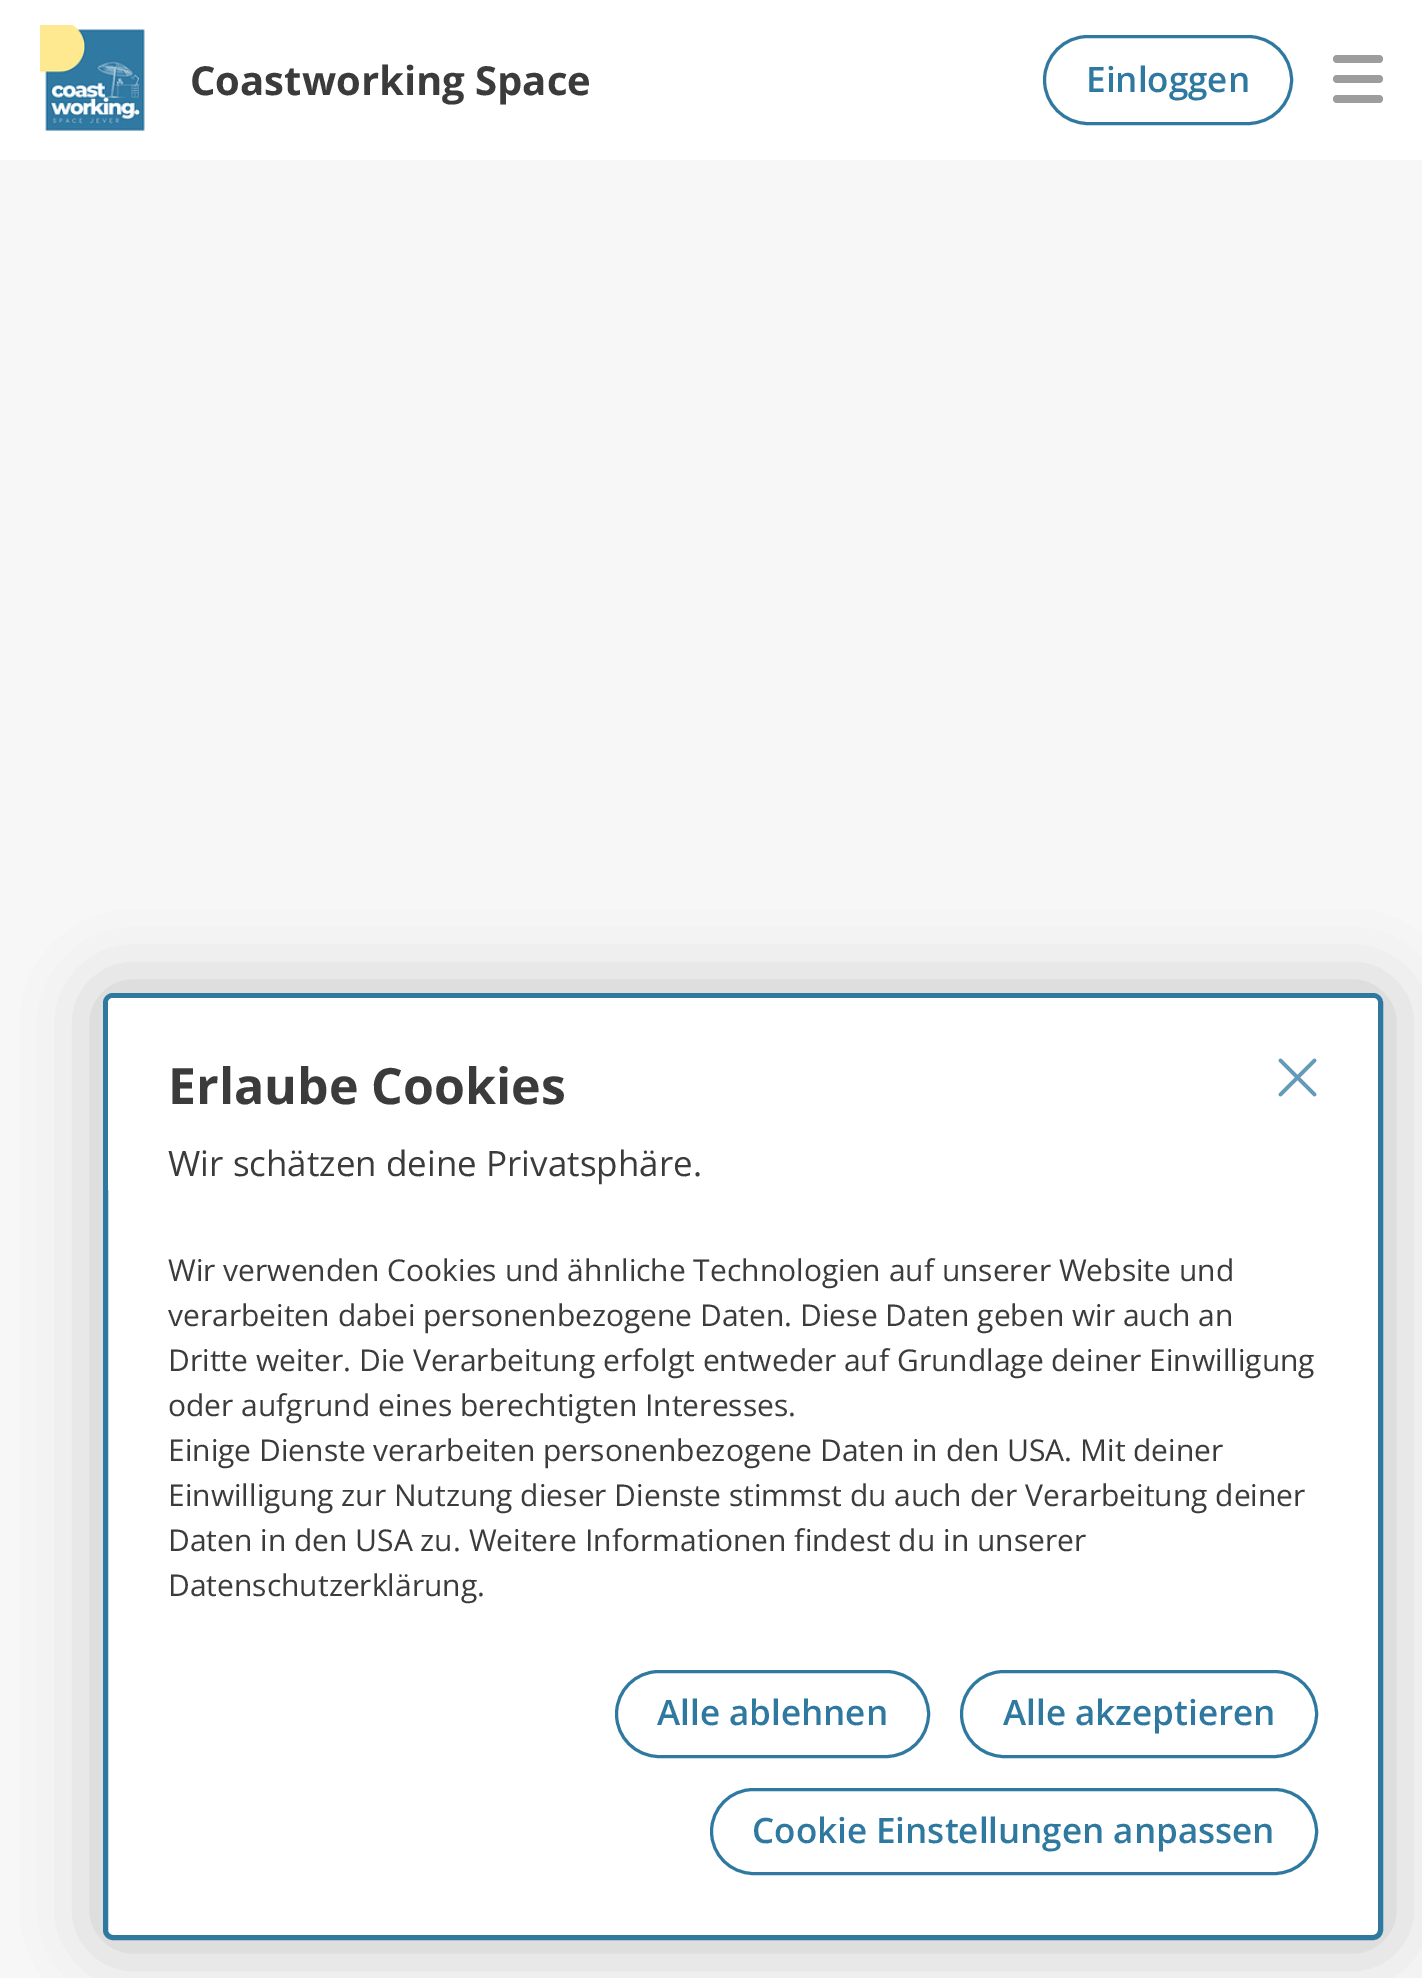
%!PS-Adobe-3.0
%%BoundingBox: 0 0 1422 1978
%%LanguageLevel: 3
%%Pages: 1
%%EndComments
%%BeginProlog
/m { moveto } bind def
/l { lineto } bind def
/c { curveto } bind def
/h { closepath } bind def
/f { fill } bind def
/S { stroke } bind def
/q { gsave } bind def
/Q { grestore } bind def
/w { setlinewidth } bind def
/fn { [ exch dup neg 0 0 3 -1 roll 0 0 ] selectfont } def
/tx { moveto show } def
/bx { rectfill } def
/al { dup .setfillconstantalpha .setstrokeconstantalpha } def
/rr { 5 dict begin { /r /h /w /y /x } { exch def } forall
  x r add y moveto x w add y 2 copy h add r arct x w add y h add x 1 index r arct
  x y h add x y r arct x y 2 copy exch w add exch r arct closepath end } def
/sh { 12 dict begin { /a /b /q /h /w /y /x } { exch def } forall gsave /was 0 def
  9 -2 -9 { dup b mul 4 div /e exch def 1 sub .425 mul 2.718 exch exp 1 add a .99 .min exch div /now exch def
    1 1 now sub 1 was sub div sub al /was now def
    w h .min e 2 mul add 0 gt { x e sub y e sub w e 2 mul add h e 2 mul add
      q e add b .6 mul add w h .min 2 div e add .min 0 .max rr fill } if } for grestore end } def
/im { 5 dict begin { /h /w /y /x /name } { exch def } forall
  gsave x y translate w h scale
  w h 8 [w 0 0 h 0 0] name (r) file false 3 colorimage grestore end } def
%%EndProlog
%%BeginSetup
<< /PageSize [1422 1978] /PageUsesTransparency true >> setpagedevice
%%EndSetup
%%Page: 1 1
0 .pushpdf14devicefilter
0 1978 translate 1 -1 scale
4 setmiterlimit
1 setgray
0 0 1422 1978 bx
(image0.raw) 40 25 105 106 im
/OpenSans-Bold 40 fn
0.231 setgray
(Coastworking Space) 190 95 tx
0.184 0.475 0.631 setrgbcolor
3 w
1044.5 36.5 247 87 43.5 rr S
/OpenSans-SemiBold 35 fn
(Einloggen) 1086 92 tx
0.616 setgray
1333 55 50 8 4 rr f
1333 95 50 8 4 rr f
1333 75 50 8 4 rr f
0.969 setgray
0 160 1422 1818 bx
0 setgray
98 988 1290 957 15 35 0.2 sh
1 setgray
105.5 995.5 1275 942 7.5 rr q f Q
0.184 0.475 0.631 setrgbcolor
5 w
S
1 setgray
113 998 m 1373 998 l 1376 998 1378 1000 1378 1003 c 1378 1190 l 108 1190 l 108 1003 l 108 1000 110 998 113 998 c h f
(image1.raw) 1278 1058 39 39 im
/OpenSans-Bold 50 fn
0.231 setgray
(Erlaube Cookies) 168 1104 tx
/OpenSans-Regular 35 fn
(Wir schätzen deine Privatsphäre.) 168 1176 tx
/OpenSans-Regular 30 fn
(Wir verwenden Cookies und ähnliche Technologien auf unserer Website und) 168 1281 tx
(verarbeiten dabei personenbezogene Daten. Diese Daten geben wir auch an) 168 1326 tx
(Dritte weiter. Die Verarbeitung erfolgt entweder auf Grundlage deiner Einwilligung) 168 1371 tx
(oder aufgrund eines berechtigten Interesses.) 168 1416 tx
(Einige Dienste verarbeiten personenbezogene Daten in den USA. Mit deiner) 168 1461 tx
(Einwilligung zur Nutzung dieser Dienste stimmst du auch der Verarbeitung deiner) 168 1506 tx
(Daten in den USA zu. Weitere Informationen findest du in unserer) 168 1551 tx
(Datenschutzerklärung.) 168 1596 tx
0.184 0.475 0.631 setrgbcolor
3 w
616.5 1671.5 312 85 42.5 rr S
/OpenSans-SemiBold 35 fn
(Alle ablehnen) 657 1725 tx
961.5 1671.5 355 85 42.5 rr S
(Alle akzeptieren) 1003 1725 tx
711.5 1789.5 605 84 42 rr S
(Cookie Einstellungen anpassen) 752 1843 tx
.poppdf14devicefilter showpage
%%EOF
